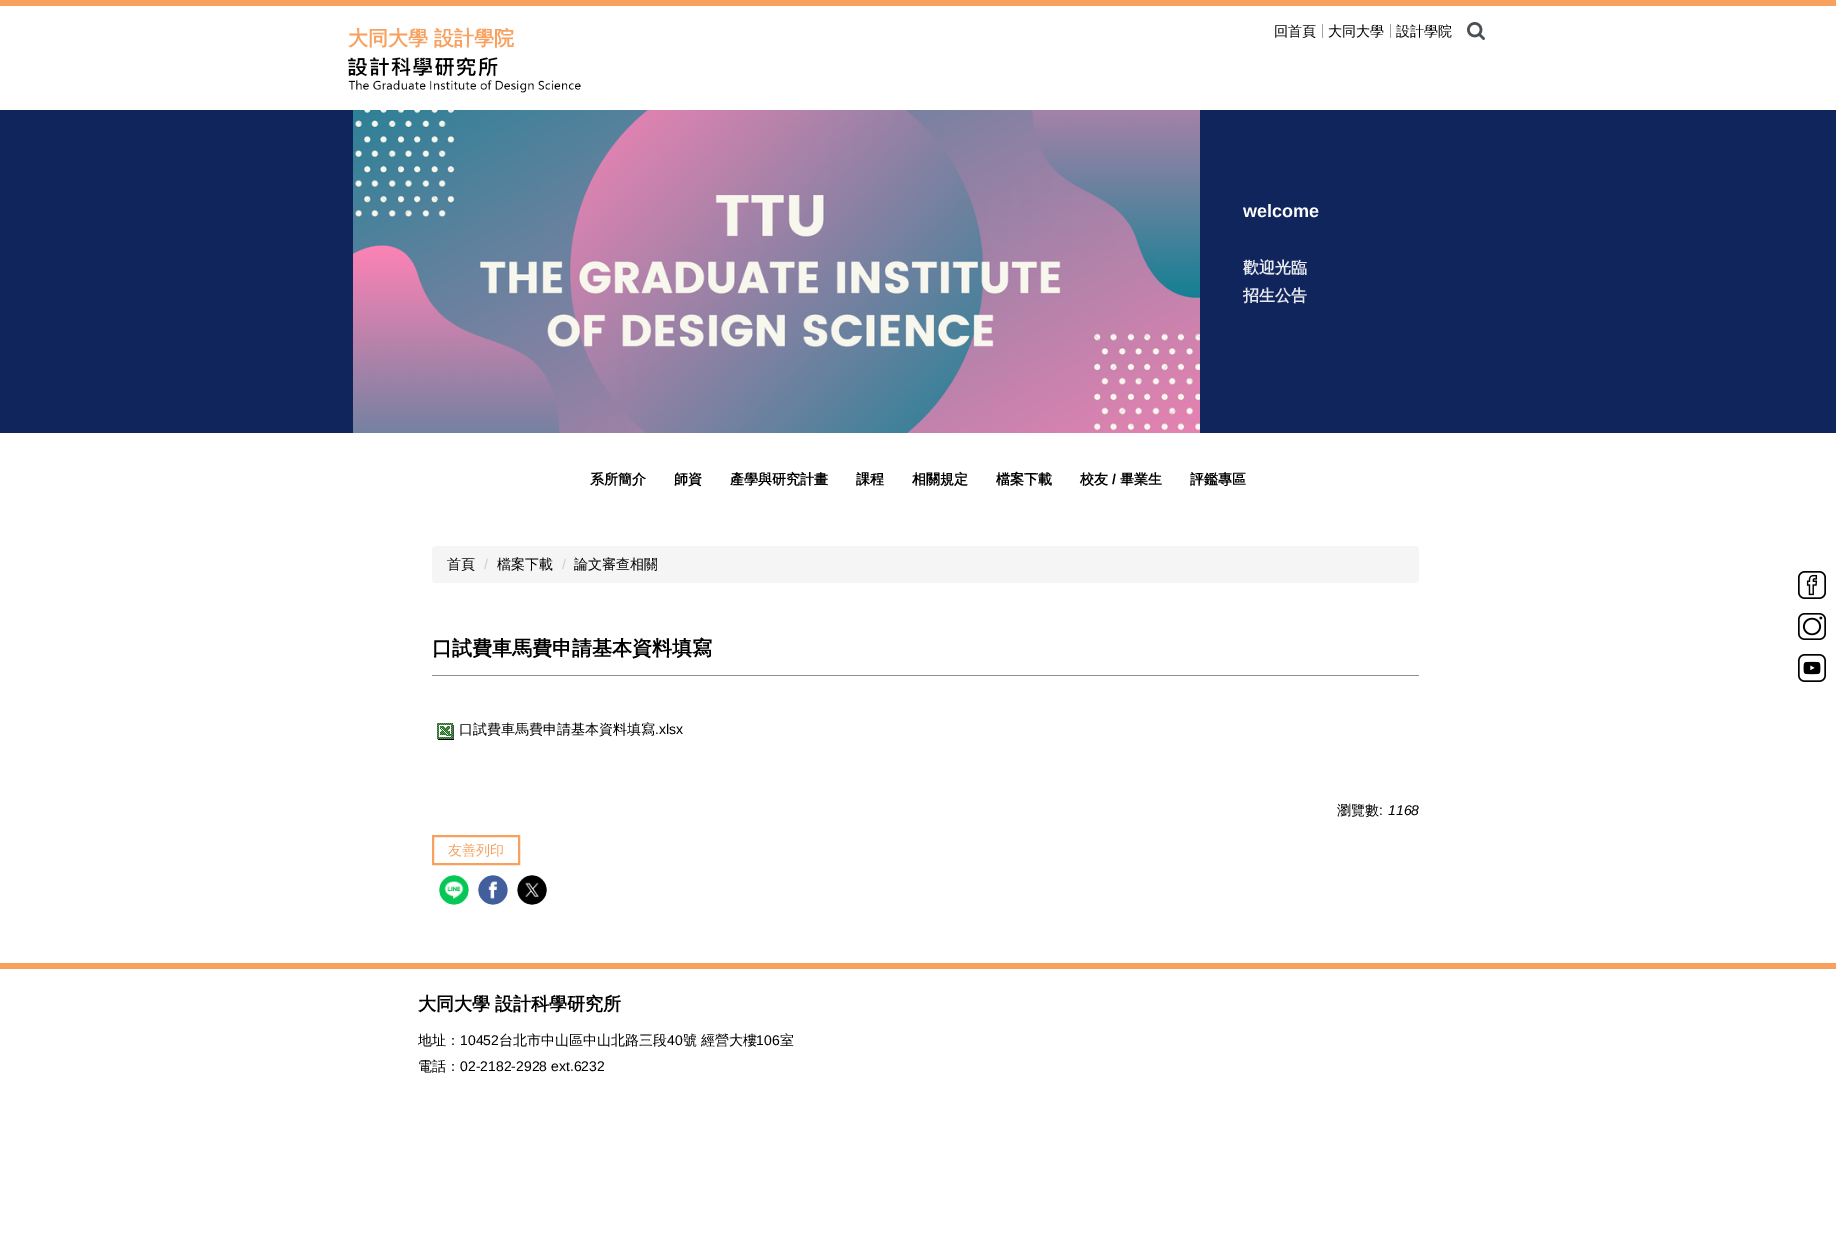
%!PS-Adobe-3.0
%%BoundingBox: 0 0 1836 1248
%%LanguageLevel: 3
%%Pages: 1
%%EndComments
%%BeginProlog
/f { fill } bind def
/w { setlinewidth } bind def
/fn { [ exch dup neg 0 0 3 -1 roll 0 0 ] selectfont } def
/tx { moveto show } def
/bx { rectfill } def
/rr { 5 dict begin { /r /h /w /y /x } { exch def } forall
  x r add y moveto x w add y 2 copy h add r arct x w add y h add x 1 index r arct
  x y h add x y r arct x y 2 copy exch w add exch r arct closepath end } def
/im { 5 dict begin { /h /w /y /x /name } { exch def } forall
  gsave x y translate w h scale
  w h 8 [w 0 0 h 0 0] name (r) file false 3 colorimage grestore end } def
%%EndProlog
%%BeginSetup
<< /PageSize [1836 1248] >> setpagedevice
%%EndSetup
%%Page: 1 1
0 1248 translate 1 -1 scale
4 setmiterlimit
1 setgray
0 0 1836 1248 bx
0.973 0.631 0.373 setrgbcolor
0 0 1836 6 bx
/WenQuanYiZenHei-Bold 20 fn
(大同大學 設計學院) 348 45 tx
(image0.raw) 348 57 233 36 im
/WenQuanYiZenHei-Medium 14 fn
0 setgray
(回首頁) 1274 36 tx
0.639 setgray
1322 24 1 14 bx
0 setgray
(大同大學) 1328 36 tx
0.639 setgray
1390 24 1 14 bx
0 setgray
(設計學院) 1396 36 tx
(image1.raw) 1467 22 18 18 im
0.063 0.145 0.361 setrgbcolor
0 110 1836 323 bx
(image2.raw) 353 110 847 323 im
/LiberationSans-Bold 18 fn
1 setgray
(welcome) 1243 217 tx
/WenQuanYiZenHei-Bold 16 fn
0.906 0.914 0.937 setrgbcolor
(歡迎光臨) 1243 273 tx
(招生公告) 1243 301 tx
/WenQuanYiZenHei-Bold 14 fn
0 setgray
(系所簡介) 590 484 tx
(師資) 674 484 tx
(產學與研究計畫) 730 484 tx
(課程) 856 484 tx
(相關規定) 912 484 tx
(檔案下載) 996 484 tx
(校友) 1080 484 tx
/LiberationSans-Bold 14 fn
(/) 1112 484 tx
/WenQuanYiZenHei-Bold 14 fn
(畢業生) 1120 484 tx
(評鑑專區) 1190 484 tx
0.961 setgray
432 546 987 37 4 rr f
/WenQuanYiZenHei-Medium 14 fn
0 setgray
(首頁) 447 569 tx
/LiberationSans-Regular 14 fn
0.8 setgray
(/) 484 569 tx
/WenQuanYiZenHei-Medium 14 fn
0 setgray
(檔案下載) 497 569 tx
/LiberationSans-Regular 14 fn
0.8 setgray
(/) 562 569 tx
/WenQuanYiZenHei-Medium 14 fn
0 setgray
(論文審查相關) 574 569 tx
0.561 0.565 0.569 setrgbcolor
432 675 987 1 bx
/WenQuanYiZenHei-Bold 20 fn
0 setgray
(口試費車馬費申請基本資料填寫) 432 655 tx
(image3.raw) 437 723 17 17 im
/WenQuanYiZenHei-Medium 14 fn
(口試費車馬費申請基本資料填寫) 459 734 tx
/LiberationSans-Regular 14 fn
(.xlsx) 655 734 tx
/WenQuanYiZenHei-Medium 14 fn
(瀏覽數) 1337 815 tx
/LiberationSans-Regular 14 fn
(:) 1379 815 tx
/LiberationSans-Italic 14 fn
(1168) 1388 815 tx
0.973 0.631 0.373 setrgbcolor
2 w
433 836 86 28 rectstroke
/WenQuanYiZenHei-Medium 14 fn
(友善列印) 448 855 tx
(image4.raw) 439 875 30 30 im
(image5.raw) 478 875 30 30 im
(image6.raw) 517 875 30 30 im
0 963 1836 6 bx
(image7.raw) 1798 571 28 28 im
(image8.raw) 1798 613 28 27 im
(image9.raw) 1798 654 28 28 im
/WenQuanYiZenHei-Bold 18 fn
0 setgray
(大同大學 設計科學研究所) 418 1010 tx
/WenQuanYiZenHei-Medium 14 fn
(地址：) 418 1045 tx
/LiberationSans-Regular 14 fn
(10452) 460 1045 tx
/WenQuanYiZenHei-Medium 14 fn
(台北市中山區中山北路三段) 499 1045 tx
/LiberationSans-Regular 14 fn
(40) 667 1045 tx
/WenQuanYiZenHei-Medium 14 fn
(號 經營大樓) 683 1045 tx
/LiberationSans-Regular 14 fn
(106) 756 1045 tx
/WenQuanYiZenHei-Medium 14 fn
(室) 780 1045 tx
(電話：) 418 1071 tx
/LiberationSans-Regular 14 fn
(02-2182-2928 ext.6232) 460 1071 tx
showpage
%%EOF
